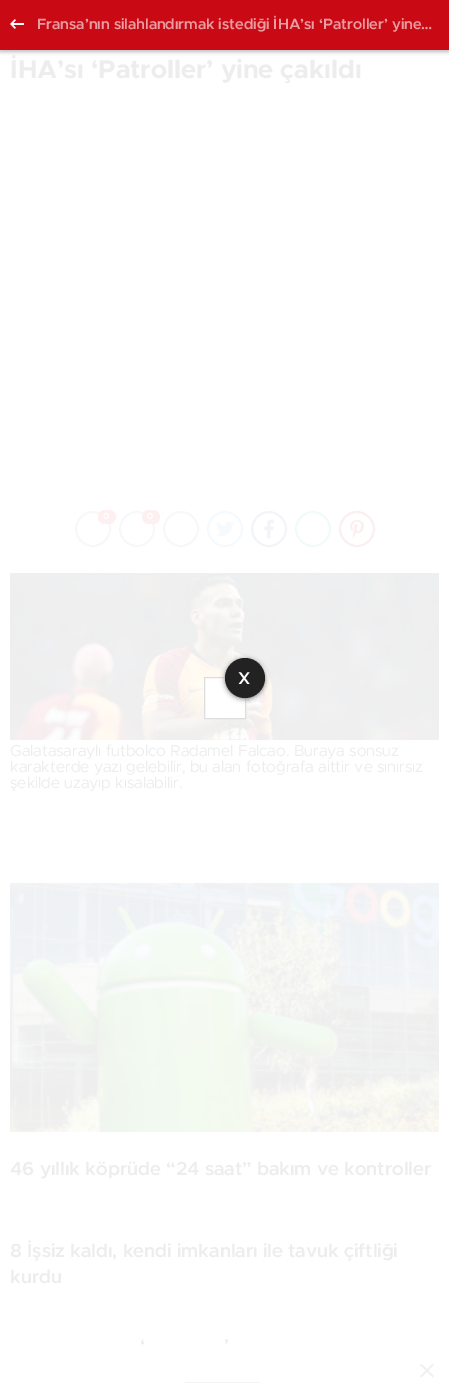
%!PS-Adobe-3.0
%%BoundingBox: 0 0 449 1396
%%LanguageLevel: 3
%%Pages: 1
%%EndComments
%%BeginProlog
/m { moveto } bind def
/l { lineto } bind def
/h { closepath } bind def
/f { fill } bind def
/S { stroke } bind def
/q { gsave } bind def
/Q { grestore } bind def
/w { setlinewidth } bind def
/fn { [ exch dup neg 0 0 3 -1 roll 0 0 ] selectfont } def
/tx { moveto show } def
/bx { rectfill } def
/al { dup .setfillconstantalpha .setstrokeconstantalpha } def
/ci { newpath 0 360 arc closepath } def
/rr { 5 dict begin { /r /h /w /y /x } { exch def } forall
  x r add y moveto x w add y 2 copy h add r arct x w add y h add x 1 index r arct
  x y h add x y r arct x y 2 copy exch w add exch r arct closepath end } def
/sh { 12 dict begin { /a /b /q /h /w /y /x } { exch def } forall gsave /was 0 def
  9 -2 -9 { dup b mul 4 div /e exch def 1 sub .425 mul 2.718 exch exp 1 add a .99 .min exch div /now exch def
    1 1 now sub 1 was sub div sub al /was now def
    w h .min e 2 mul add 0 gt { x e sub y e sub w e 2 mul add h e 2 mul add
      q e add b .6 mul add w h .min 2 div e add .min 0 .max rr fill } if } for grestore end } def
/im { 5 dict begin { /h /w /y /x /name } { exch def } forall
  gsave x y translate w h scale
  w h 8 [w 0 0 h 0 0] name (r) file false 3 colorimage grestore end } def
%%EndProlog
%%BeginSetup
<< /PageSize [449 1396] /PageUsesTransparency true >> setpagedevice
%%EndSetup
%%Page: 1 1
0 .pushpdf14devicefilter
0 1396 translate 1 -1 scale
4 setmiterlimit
1 setgray
0 0 449 1396 bx
0.067 0.082 0.098 setrgbcolor
0 2 449 50 0 2 0.28 sh
0.788 0.035 0.078 setrgbcolor
0 0 449 50 bx
(image0.raw) 10 19 14 10 im
/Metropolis-SemiBold 15 fn
0.914 0.616 0.631 setrgbcolor
(Fransa’nın silahlandırmak istediği İHA’sı ‘Patroller’ yine…) 37 29 tx
/Metropolis-Bold 26 fn
0.929 setgray
(İHA’sı ‘Patroller’ yine çakıldı) 10 78 tx
0.973 0.973 0.976 setrgbcolor
2 w
93 529 17 ci S
0.996 0.937 0.941 setrgbcolor
98 510 18 14 7 rr f
/Metropolis-Bold 9 fn
1 setgray
(0) 103 519 tx
0.973 0.973 0.976 setrgbcolor
137 529 17 ci S
0.996 0.937 0.941 setrgbcolor
142 510 18 14 7 rr f
1 setgray
(0) 147 519 tx
0.973 0.973 0.976 setrgbcolor
181 529 17 ci S
0.957 0.98 0.996 setrgbcolor
225 529 17 ci S
(image1.raw) 216 521 18 15 im
0.949 0.957 0.973 setrgbcolor
269 529 17 ci S
(image2.raw) 264 519 10 20 im
0.941 0.988 0.957 setrgbcolor
313 529 17 ci S
0.984 0.937 0.941 setrgbcolor
357 529 17 ci S
(image3.raw) 350 519 14 20 im
(image4.raw) 10 573 429 167 im
/Metropolis-Regular 16 fn
0.929 setgray
(Galatasaraylı futbolco Radamel Falcao. Buraya sonsuz) 10 756 tx
(karakterde yazı gelebilir, bu alan fotoğrafa aittir ve sınırsız) 10 772 tx
(şekilde uzayıp kısalabilir.) 10 788 tx
(image5.raw) 10 883 429 249 im
/Metropolis-SemiBold 19 fn
(46 yıllık köprüde “24 saat” bakım ve kontroller) 10 1175 tx
(8 İşsiz kaldı, kendi imkanları ile tavuk çiftliği) 10 1257 tx
(kurdu) 10 1283 tx
(‘) 140 1352 tx
(’) 224 1352 tx
1 setgray
204.5 677.5 m 245.5 677.5 l 245.5 718.5 l 204.5 718.5 l h q f Q
0.867 setgray
1 w
S
0.502 setgray
225 659 40 40 20 2.5 1 sh
0.133 setgray
245 678 20 ci f
/Metropolis-SemiBold 17 fn
1 setgray
(X) 238 684 tx
(image6.raw) 420 1364 14 14 im
0.957 setgray
185 1382 75 1 bx
.poppdf14devicefilter showpage
%%EOF
